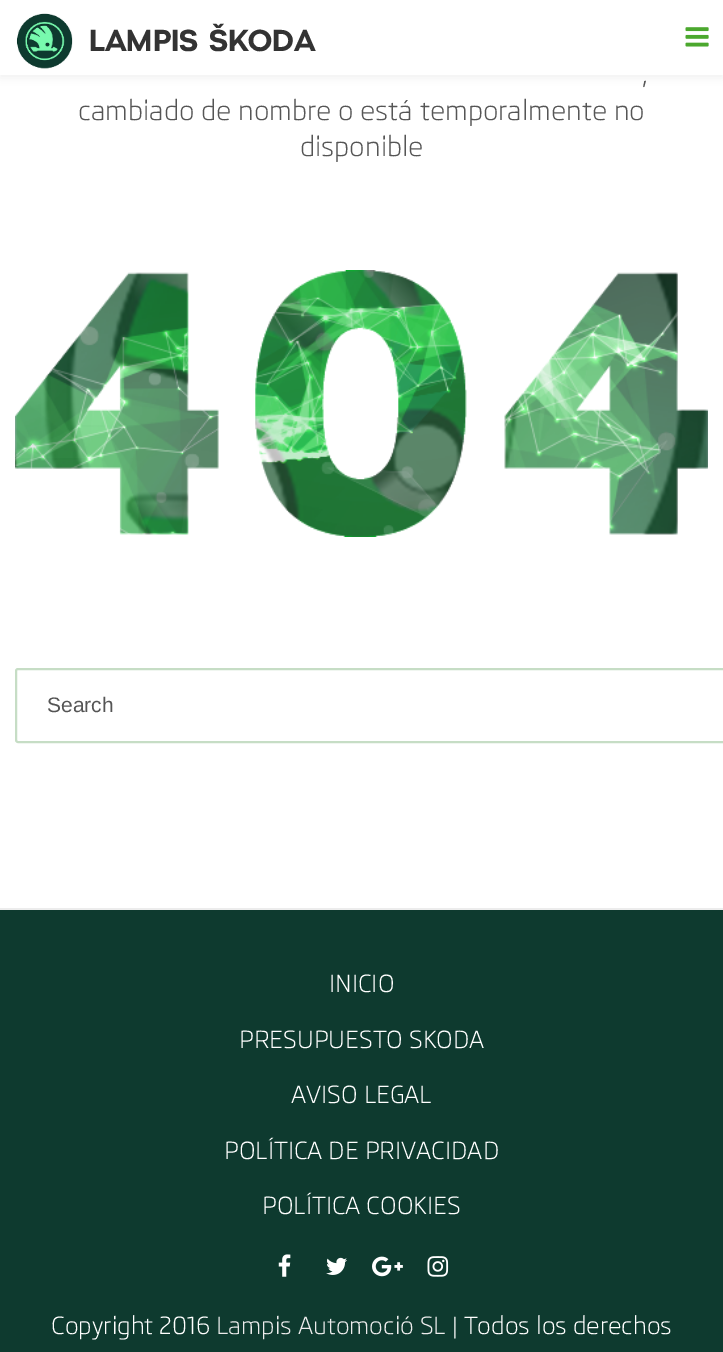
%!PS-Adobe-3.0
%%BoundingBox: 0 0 723 1352
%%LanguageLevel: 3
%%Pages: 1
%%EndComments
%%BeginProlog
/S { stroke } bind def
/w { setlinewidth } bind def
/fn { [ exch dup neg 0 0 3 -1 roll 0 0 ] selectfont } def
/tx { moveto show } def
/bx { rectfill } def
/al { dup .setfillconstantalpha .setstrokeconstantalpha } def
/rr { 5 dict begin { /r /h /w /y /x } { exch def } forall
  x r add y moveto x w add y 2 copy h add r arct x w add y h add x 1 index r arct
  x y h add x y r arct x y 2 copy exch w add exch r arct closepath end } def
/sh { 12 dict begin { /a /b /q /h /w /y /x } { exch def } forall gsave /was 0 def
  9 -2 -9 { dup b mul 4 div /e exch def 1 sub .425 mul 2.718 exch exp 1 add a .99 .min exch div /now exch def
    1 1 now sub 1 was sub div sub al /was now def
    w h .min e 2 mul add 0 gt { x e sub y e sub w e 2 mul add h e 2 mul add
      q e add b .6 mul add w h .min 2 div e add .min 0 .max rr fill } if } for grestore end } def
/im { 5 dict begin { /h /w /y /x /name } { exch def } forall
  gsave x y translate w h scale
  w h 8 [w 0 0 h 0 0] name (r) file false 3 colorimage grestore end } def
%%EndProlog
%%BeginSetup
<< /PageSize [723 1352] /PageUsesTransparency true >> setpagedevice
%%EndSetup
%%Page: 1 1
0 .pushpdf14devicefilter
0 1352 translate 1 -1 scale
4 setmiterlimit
1 setgray
0 0 723 1352 bx
0 setgray
0 3 723 75 0 4.5 0.05 sh
1 setgray
0 0 723 75 bx
(image0.raw) 16 13 57 56 im
/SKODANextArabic-Bold 30 fn
0.2 setgray
(LAMPIS ŠKODA) 89 51 tx
(image1.raw) 685 27 24 20 im
/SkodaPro-Regular 27 fn
0.333 setgray
(,) 642 84 tx
(cambiado de nombre o está temporalmente no) 78 120 tx
(disponible) 300 156 tx
(image2.raw) 15 270 693 267 im
0.776 0.867 0.773 setrgbcolor
2 w
16 669 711 73 2 rr S
/LiberationSans-Regular 21 fn
0.333 setgray
(Search) 47 712 tx
0.055 0.227 0.184 setrgbcolor
0 910 723 442 bx
0.925 setgray
0 908 723 2 bx
/SkodaPro-Regular 24 fn
1 setgray
(INICIO) 329 992 tx
(PRESUPUESTO SKODA) 239 1048 tx
(AVISO LEGAL) 291 1103 tx
(POLÍTICA DE PRIVACIDAD) 224 1159 tx
(POLÍTICA COOKIES) 262 1214 tx
(image3.raw) 278 1254 13 23 im
(image4.raw) 326 1257 21 18 im
(image5.raw) 372 1256 31 21 im
(image6.raw) 427 1256 22 21 im
(Copyright 2016) 51 1334 tx
0.925 setgray
(Lampis Automoció SL) 216 1334 tx
1 setgray
(| Todos los derechos) 452 1334 tx
.poppdf14devicefilter showpage
%%EOF
